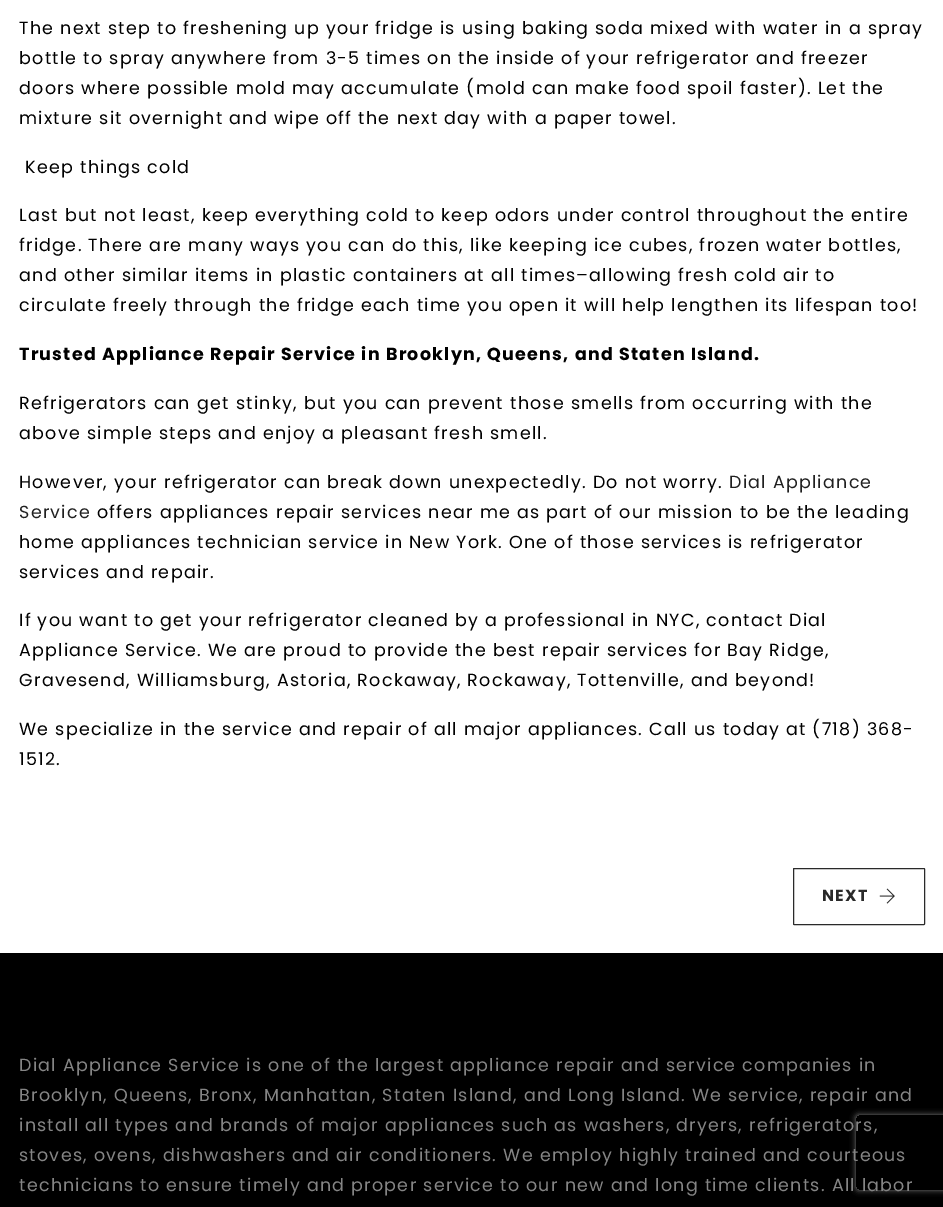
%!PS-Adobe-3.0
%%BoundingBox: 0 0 943 1207
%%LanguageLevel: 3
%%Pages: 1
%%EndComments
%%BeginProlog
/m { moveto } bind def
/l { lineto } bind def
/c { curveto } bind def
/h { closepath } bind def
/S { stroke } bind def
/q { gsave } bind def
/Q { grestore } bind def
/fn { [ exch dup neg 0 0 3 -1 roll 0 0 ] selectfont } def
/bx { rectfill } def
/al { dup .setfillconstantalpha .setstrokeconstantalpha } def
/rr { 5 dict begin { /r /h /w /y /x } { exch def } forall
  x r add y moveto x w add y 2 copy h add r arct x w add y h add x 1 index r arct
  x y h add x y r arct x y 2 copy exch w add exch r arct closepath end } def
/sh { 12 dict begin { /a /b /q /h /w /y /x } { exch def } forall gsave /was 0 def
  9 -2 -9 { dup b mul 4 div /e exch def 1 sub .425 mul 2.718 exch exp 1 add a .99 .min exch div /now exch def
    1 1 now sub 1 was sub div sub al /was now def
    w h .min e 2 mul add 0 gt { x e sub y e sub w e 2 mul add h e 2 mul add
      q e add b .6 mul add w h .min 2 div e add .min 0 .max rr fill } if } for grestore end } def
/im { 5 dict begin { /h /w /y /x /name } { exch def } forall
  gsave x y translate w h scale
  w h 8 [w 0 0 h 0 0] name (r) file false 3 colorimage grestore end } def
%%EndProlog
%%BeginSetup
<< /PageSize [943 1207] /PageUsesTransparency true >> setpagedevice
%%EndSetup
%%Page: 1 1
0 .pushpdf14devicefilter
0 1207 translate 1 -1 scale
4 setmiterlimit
0 setgray
0 0 943 1207 bx
1 setgray
0 0 943 953 bx
/Poppins-Regular 17.5 fn
0 setgray
19 34 m 1.25 0 (The next step to freshening up your fridge is using baking soda mixed with water in a spray) ashow
19 64 m 1.25 0 (bottle to spray anywhere from 3-5 times on the inside of your refrigerator and freezer) ashow
19 94 m 1.25 0 (doors where possible mold may accumulate \(mold can make food spoil faster\). Let the) ashow
19 124 m 1.25 0 (mixture sit overnight and wipe off the next day with a paper towel.) ashow
25 173 m 1.25 0 (Keep things cold) ashow
19 221 m 1.25 0 (Last but not least, keep everything cold to keep odors under control throughout the entire) ashow
19 251 m 1.25 0 (fridge. There are many ways you can do this, like keeping ice cubes, frozen water bottles,) ashow
19 281 m 1.25 0 (and other similar items in plastic containers at all times–allowing fresh cold air to) ashow
19 311 m 1.25 0 (circulate freely through the fridge each time you open it will help lengthen its lifespan too!) ashow
/Poppins-Bold 17.5 fn
19 360 m 1.25 0 (Trusted Appliance Repair Service in Brooklyn, Queens, and Staten Island.) ashow
/Poppins-Regular 17.5 fn
19 409 m 1.25 0 (Refrigerators can get stinky, but you can prevent those smells from occurring with the) ashow
19 439 m 1.25 0 (above simple steps and enjoy a pleasant fresh smell.) ashow
19 488 m 1.25 0 (However, your refrigerator can break down unexpectedly. Do not worry.) ashow
0.125 setgray
729 488 m 1.25 0 (Dial Appliance) ashow
19 518 m 1.25 0 (Service) ashow
0 setgray
97 518 m 1.25 0 (offers appliances repair services near me as part of our mission to be the leading) ashow
19 548 m 1.25 0 (home appliances technician service in New York. One of those services is refrigerator) ashow
19 578 m 1.25 0 (services and repair.) ashow
19 626 m 1.25 0 (If you want to get your refrigerator cleaned by a professional in NYC, contact Dial) ashow
19 656 m 1.25 0 (Appliance Service. We are proud to provide the best repair services for Bay Ridge,) ashow
19 686 m 1.25 0 (Gravesend, Williamsburg, Astoria, Rockaway, Rockaway, Tottenville, and beyond!) ashow
19 735 m 1.25 0 (We specialize in the service and repair of all major appliances. Call us today at \(718\) 368-) ashow
19 765 m 1.25 0 (1512.) ashow
0.165 setgray
793.5 868.5 131 56 0.5 rr S
/Poppins-Bold 16 fn
822 901 m 1.25 0 (NEXT) ashow
(image0.raw) 879 888 16 16 im
/Poppins-Regular 17.5 fn
0.522 setgray
19 1071 m 1.25 0 (Dial Appliance Service is one of the largest appliance repair and service companies in) ashow
19 1101 m 1.25 0 (Brooklyn, Queens, Bronx, Manhattan, Staten Island, and Long Island. We service, repair and) ashow
19 1131 m 1.25 0 (install all types and brands of major appliances such as washers, dryers, refrigerators,) ashow
19 1161 m 1.25 0 (stoves, ovens, dishwashers and air conditioners. We employ highly trained and courteous) ashow
19 1191 m 1.25 0 (technicians to ensure timely and proper service to our new and long time clients. All labor) ashow
q
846 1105 m 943 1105 l 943 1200 l 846 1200 l h 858.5 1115 m 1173.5 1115 l 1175 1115 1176 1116 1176 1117.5 c 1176 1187.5 l 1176 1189 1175 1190 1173.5 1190 c 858.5 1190 l 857 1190 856 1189 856 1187.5 c 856 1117.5 l 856 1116 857 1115 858.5 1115 c h eoclip newpath
0.502 setgray
856 1115 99 75 2.5 3 1 sh
Q
.poppdf14devicefilter showpage
%%EOF
